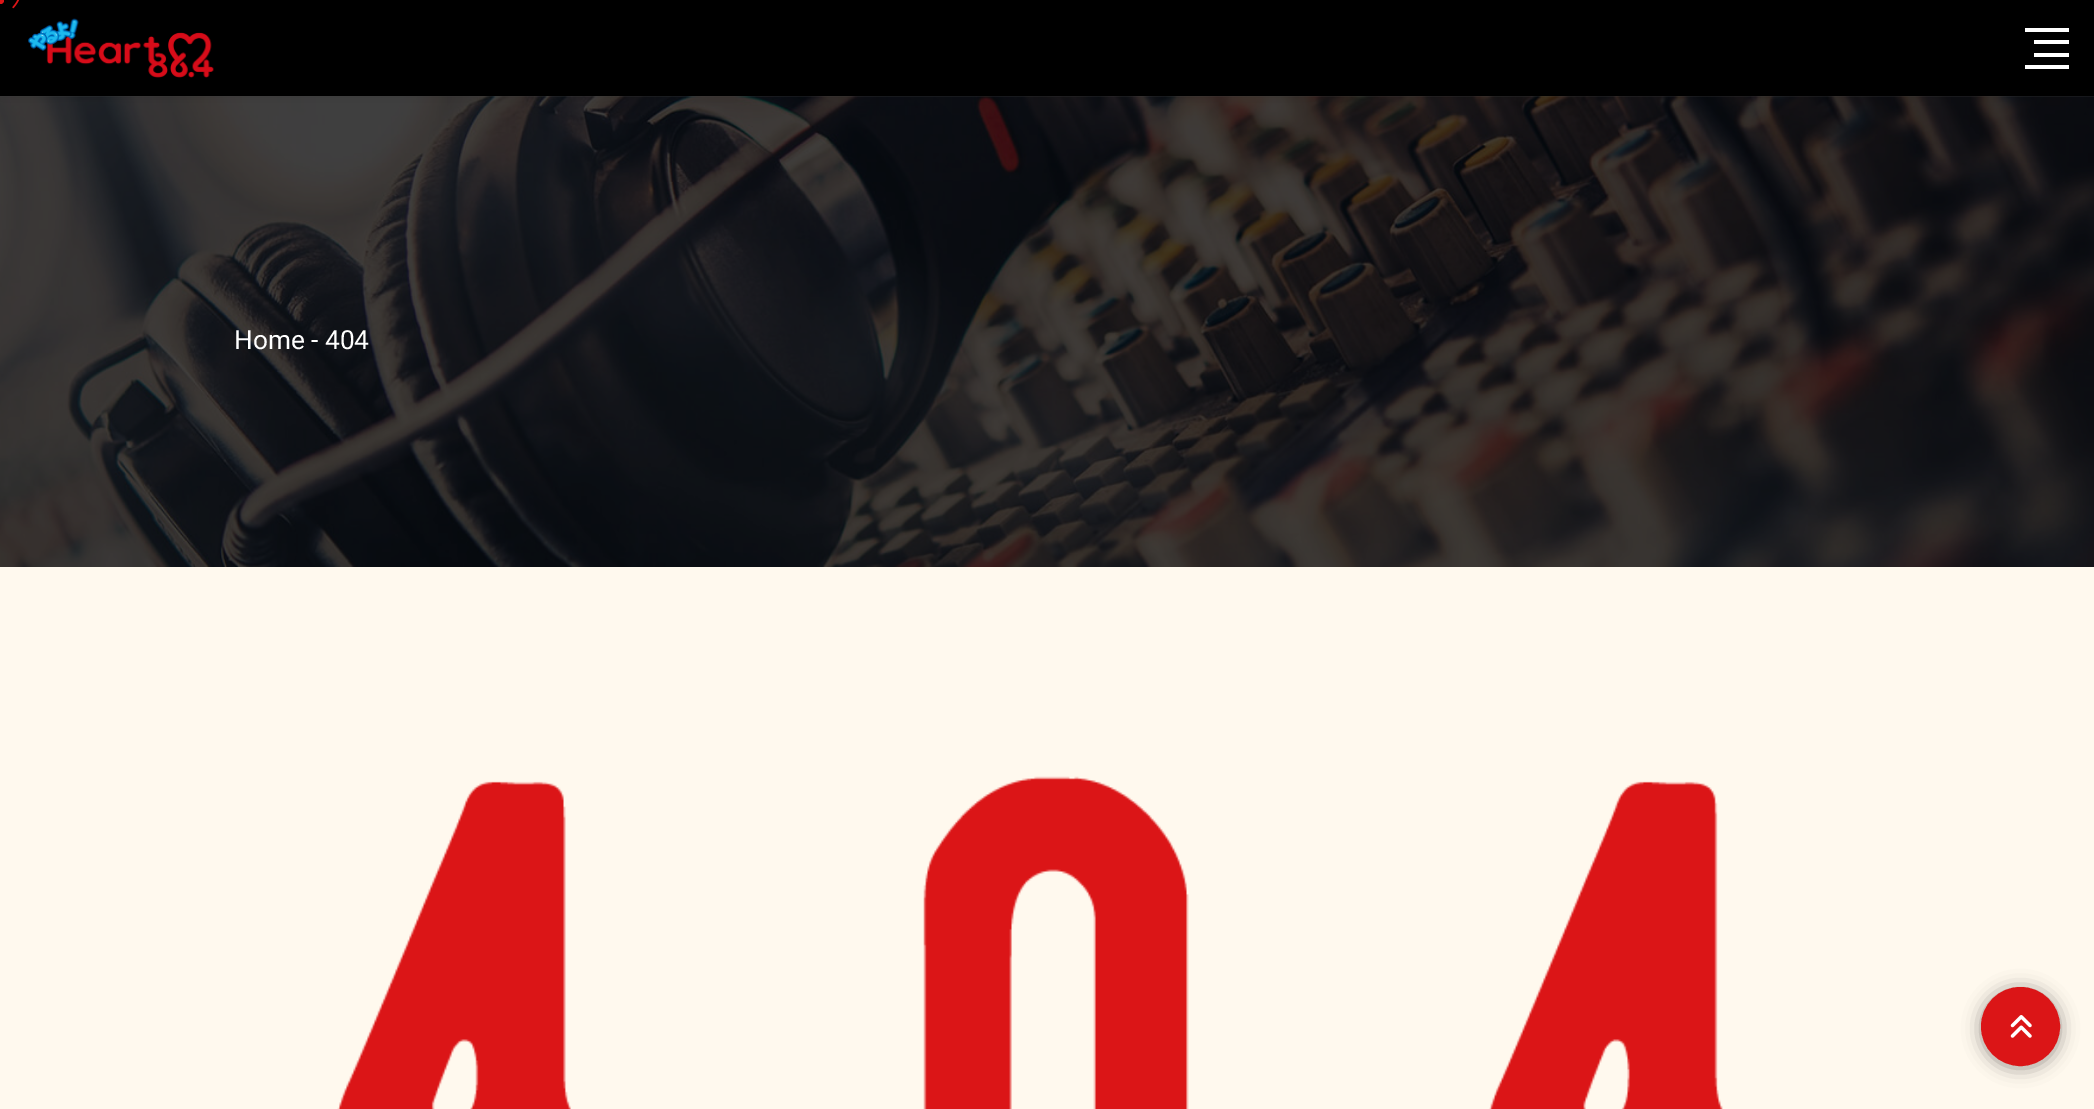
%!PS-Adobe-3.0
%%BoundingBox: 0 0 2094 1109
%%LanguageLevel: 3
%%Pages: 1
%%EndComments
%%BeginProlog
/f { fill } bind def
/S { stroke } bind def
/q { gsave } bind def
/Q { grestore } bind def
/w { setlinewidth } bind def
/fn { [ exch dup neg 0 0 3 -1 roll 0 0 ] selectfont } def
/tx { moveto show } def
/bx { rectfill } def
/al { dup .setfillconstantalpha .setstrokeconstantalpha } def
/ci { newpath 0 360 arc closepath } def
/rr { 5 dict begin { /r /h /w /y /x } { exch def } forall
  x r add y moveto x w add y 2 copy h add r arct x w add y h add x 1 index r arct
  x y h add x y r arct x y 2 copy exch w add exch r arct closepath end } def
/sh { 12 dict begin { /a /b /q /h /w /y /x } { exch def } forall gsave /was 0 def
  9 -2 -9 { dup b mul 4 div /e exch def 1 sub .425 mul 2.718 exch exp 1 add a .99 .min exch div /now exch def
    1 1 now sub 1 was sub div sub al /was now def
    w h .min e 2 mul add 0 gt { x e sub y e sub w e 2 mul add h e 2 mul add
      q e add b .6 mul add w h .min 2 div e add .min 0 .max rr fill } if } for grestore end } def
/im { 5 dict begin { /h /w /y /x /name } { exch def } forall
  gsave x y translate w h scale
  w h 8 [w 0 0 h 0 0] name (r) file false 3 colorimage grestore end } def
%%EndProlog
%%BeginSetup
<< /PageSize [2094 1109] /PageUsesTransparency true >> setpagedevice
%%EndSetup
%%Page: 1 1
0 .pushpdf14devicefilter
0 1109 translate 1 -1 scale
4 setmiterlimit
1 setgray
0 0 2094 1109 bx
(image2.raw) 0 96 2094 471 im
0 setgray
0 0 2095 96 0 9 0.11 sh
0 0 2094 96 bx
0.859 0.082 0.09 setrgbcolor
0.5 0.5 3.5 ci f
(image0.raw) 28 18 186 60 im
1 setgray
2025 28 44 4 bx
2034 40 35 4 bx
2034 53 35 4 bx
2025 65 44 4 bx
(image1.raw) 12 0 8 9 im
/Roboto-Regular 26.25 fn
(Home - 404) 234 349 tx
1 0.976 0.933 setrgbcolor
0 567 2094 542 bx
(image3.raw) 337 776 1386 333 im
0 setgray
1981 989 79 79 39.5 9 0.4 sh
0.859 0.082 0.09 setrgbcolor
2020.5 1026.5 37.5 ci q f Q
4 w
S
(image4.raw) 2010 1015 22 23 im
.poppdf14devicefilter showpage
%%EOF
